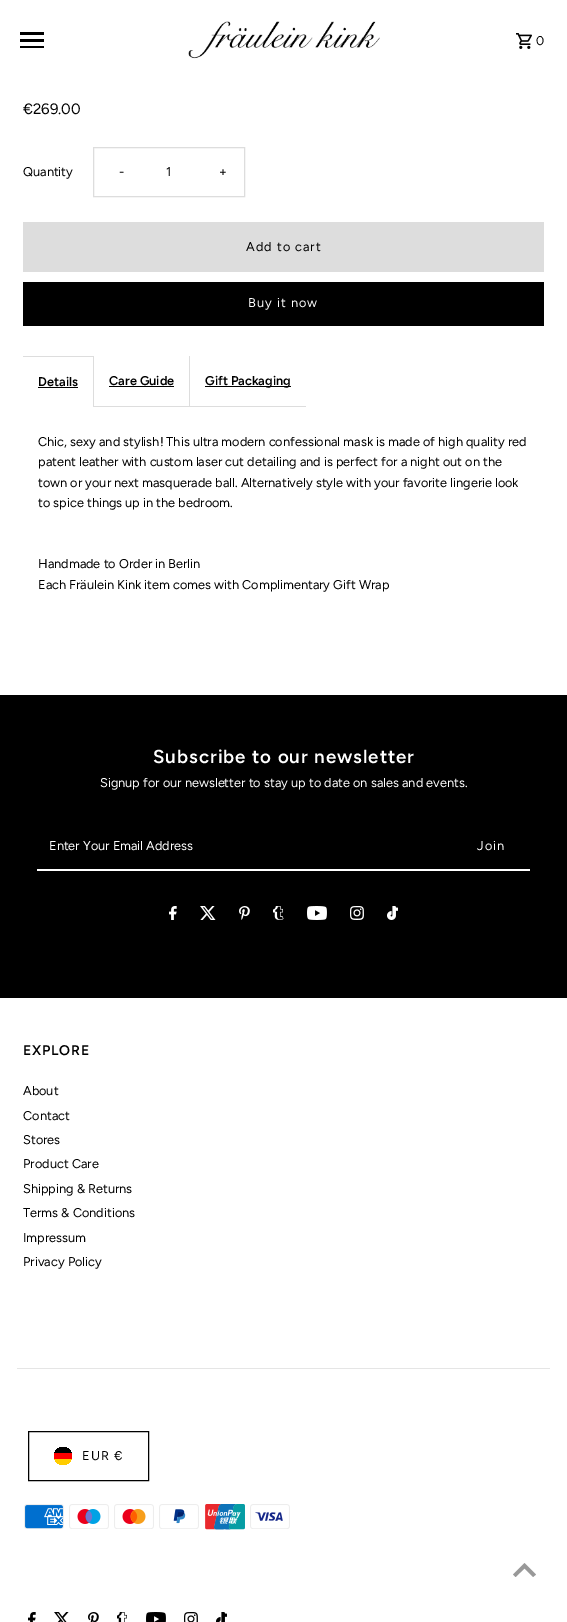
%!PS-Adobe-3.0
%%BoundingBox: 0 0 567 1622
%%LanguageLevel: 3
%%Pages: 1
%%EndComments
%%BeginProlog
/m { moveto } bind def
/l { lineto } bind def
/h { closepath } bind def
/f { fill } bind def
/q { gsave } bind def
/Q { grestore } bind def
/fn { [ exch dup neg 0 0 3 -1 roll 0 0 ] selectfont } def
/tx { moveto show } def
/bx { rectfill } def
/rr { 5 dict begin { /r /h /w /y /x } { exch def } forall
  x r add y moveto x w add y 2 copy h add r arct x w add y h add x 1 index r arct
  x y h add x y r arct x y 2 copy exch w add exch r arct closepath end } def
/im { 5 dict begin { /h /w /y /x /name } { exch def } forall
  gsave x y translate w h scale
  w h 8 [w 0 0 h 0 0] name (r) file false 3 colorimage grestore end } def
%%EndProlog
%%BeginSetup
<< /PageSize [567 1622] >> setpagedevice
%%EndSetup
%%Page: 1 1
0 1622 translate 1 -1 scale
4 setmiterlimit
1 setgray
0 0 567 1622 bx
0 setgray
20 46 24 2 bx
20 39 24 3 bx
20 32 24 3 bx
(image0.raw) 188 21 192 38 im
(image1.raw) 516 33 16 16 im
/Figtree-Regular 12.75 fn
536 45 m 1 0 (0) ashow
/Figtree-Regular 15 fn
(€269.00) 23 114 tx
/Figtree-Regular 12.75 fn
(Quantity) 23 176 tx
0.867 setgray
93.5 147.5 151 49 rectstroke
0 setgray
119 176 m 1 0 (-) ashow
(1) 166 176 tx
219 176 m 1 0 (+) ashow
0.867 setgray
23 222 521 50 bx
0 setgray
246 251 m 1 0 (Add to cart) ashow
23 282 521 44 bx
1 setgray
248 307 m 1 0 (Buy it now) ashow
0.867 setgray
93 356 1 51 bx
23 356 70 1 bx
/Figtree-SemiBold 12.75 fn
0 setgray
(Details) 38 386 tx
38 387 40 1 bx
0.867 setgray
189 356 1 51 bx
94 406 95 1 bx
0 setgray
(Care Guide) 109 385 tx
109 386 65 1 bx
0.867 setgray
190 406 116 1 bx
0 setgray
205 386 86 1 bx
(Gift Packaging) 205 385 tx
/Figtree-Regular 12.75 fn
(Chic, sexy and stylish! This ultra modern confessional mask is made of high quality red) 38 446 tx
(patent leather with custom laser cut detailing and is perfect for a night out on the) 38 466 tx
(town or your next masquerade ball. Alternatively style with your favorite lingerie look) 38 487 tx
(to spice things up in the bedroom.) 38 507 tx
(Handmade to Order in Berlin) 38 568 tx
(Each Fräulein Kink item comes with Complimentary Gift Wrap) 38 589 tx
0 695 567 303 bx
/Figtree-SemiBold 18.75 fn
1 setgray
153 763 m 0.95 0 (Subscribe to our newsletter) ashow
/Figtree-Regular 12.75 fn
(Signup for our newsletter to stay up to date on sales and events.) 100 787 tx
37 869 493 2 bx
(Enter Your Email Address) 49 850 tx
477 850 m 1 0 (Join) ashow
(image2.raw) 169 906 8 14 im
(image3.raw) 200 906 16 14 im
(image4.raw) 239 906 11 14 im
(image5.raw) 273 906 11 14 im
(image6.raw) 307 906 20 14 im
(image7.raw) 350 906 14 14 im
(image8.raw) 387 906 11 14 im
/Figtree-SemiBold 14 fn
0 setgray
23 1055 m 0.75 0 (EXPLORE) ashow
/Figtree-Regular 12.75 fn
(About) 23 1095 tx
(Contact) 23 1120 tx
(Stores) 23 1144 tx
(Product Care) 23 1168 tx
(Shipping & Returns) 23 1193 tx
(Terms & Conditions) 23 1217 tx
(Impressum) 23 1242 tx
(Privacy Policy) 23 1266 tx
0.898 setgray
17 1368 533 1 bx
0 setgray
28.5 1431.5 120 49 rectstroke
q
54 1447 18 18 9 rr clip newpath
1 0.8 0 setrgbcolor
54 1459 18 6 bx
0 setgray
54 1447 18 6 bx
1 0 0 setrgbcolor
54 1453 18 6 bx
Q
82 1460 m 1 0 (EUR €) ashow
(image9.raw) 24 1504 40 25 im
(image10.raw) 69 1504 40 25 im
(image11.raw) 114 1504 40 25 im
(image12.raw) 159 1504 40 25 im
(image13.raw) 205 1504 40 26 im
(image14.raw) 250 1504 40 25 im
(image15.raw) 28 1612 8 10 im
(image16.raw) 54 1612 15 10 im
(image17.raw) 88 1612 11 10 im
(image18.raw) 117 1612 10 10 im
(image19.raw) 146 1612 20 10 im
(image20.raw) 184 1612 14 10 im
(image21.raw) 216 1612 11 10 im
0.6 setgray
524.5 1563 m 513 1574.5 l 515.5 1577 l 524.5 1568.5 l 533 1577 l 536 1574.5 l h f
showpage
%%EOF
